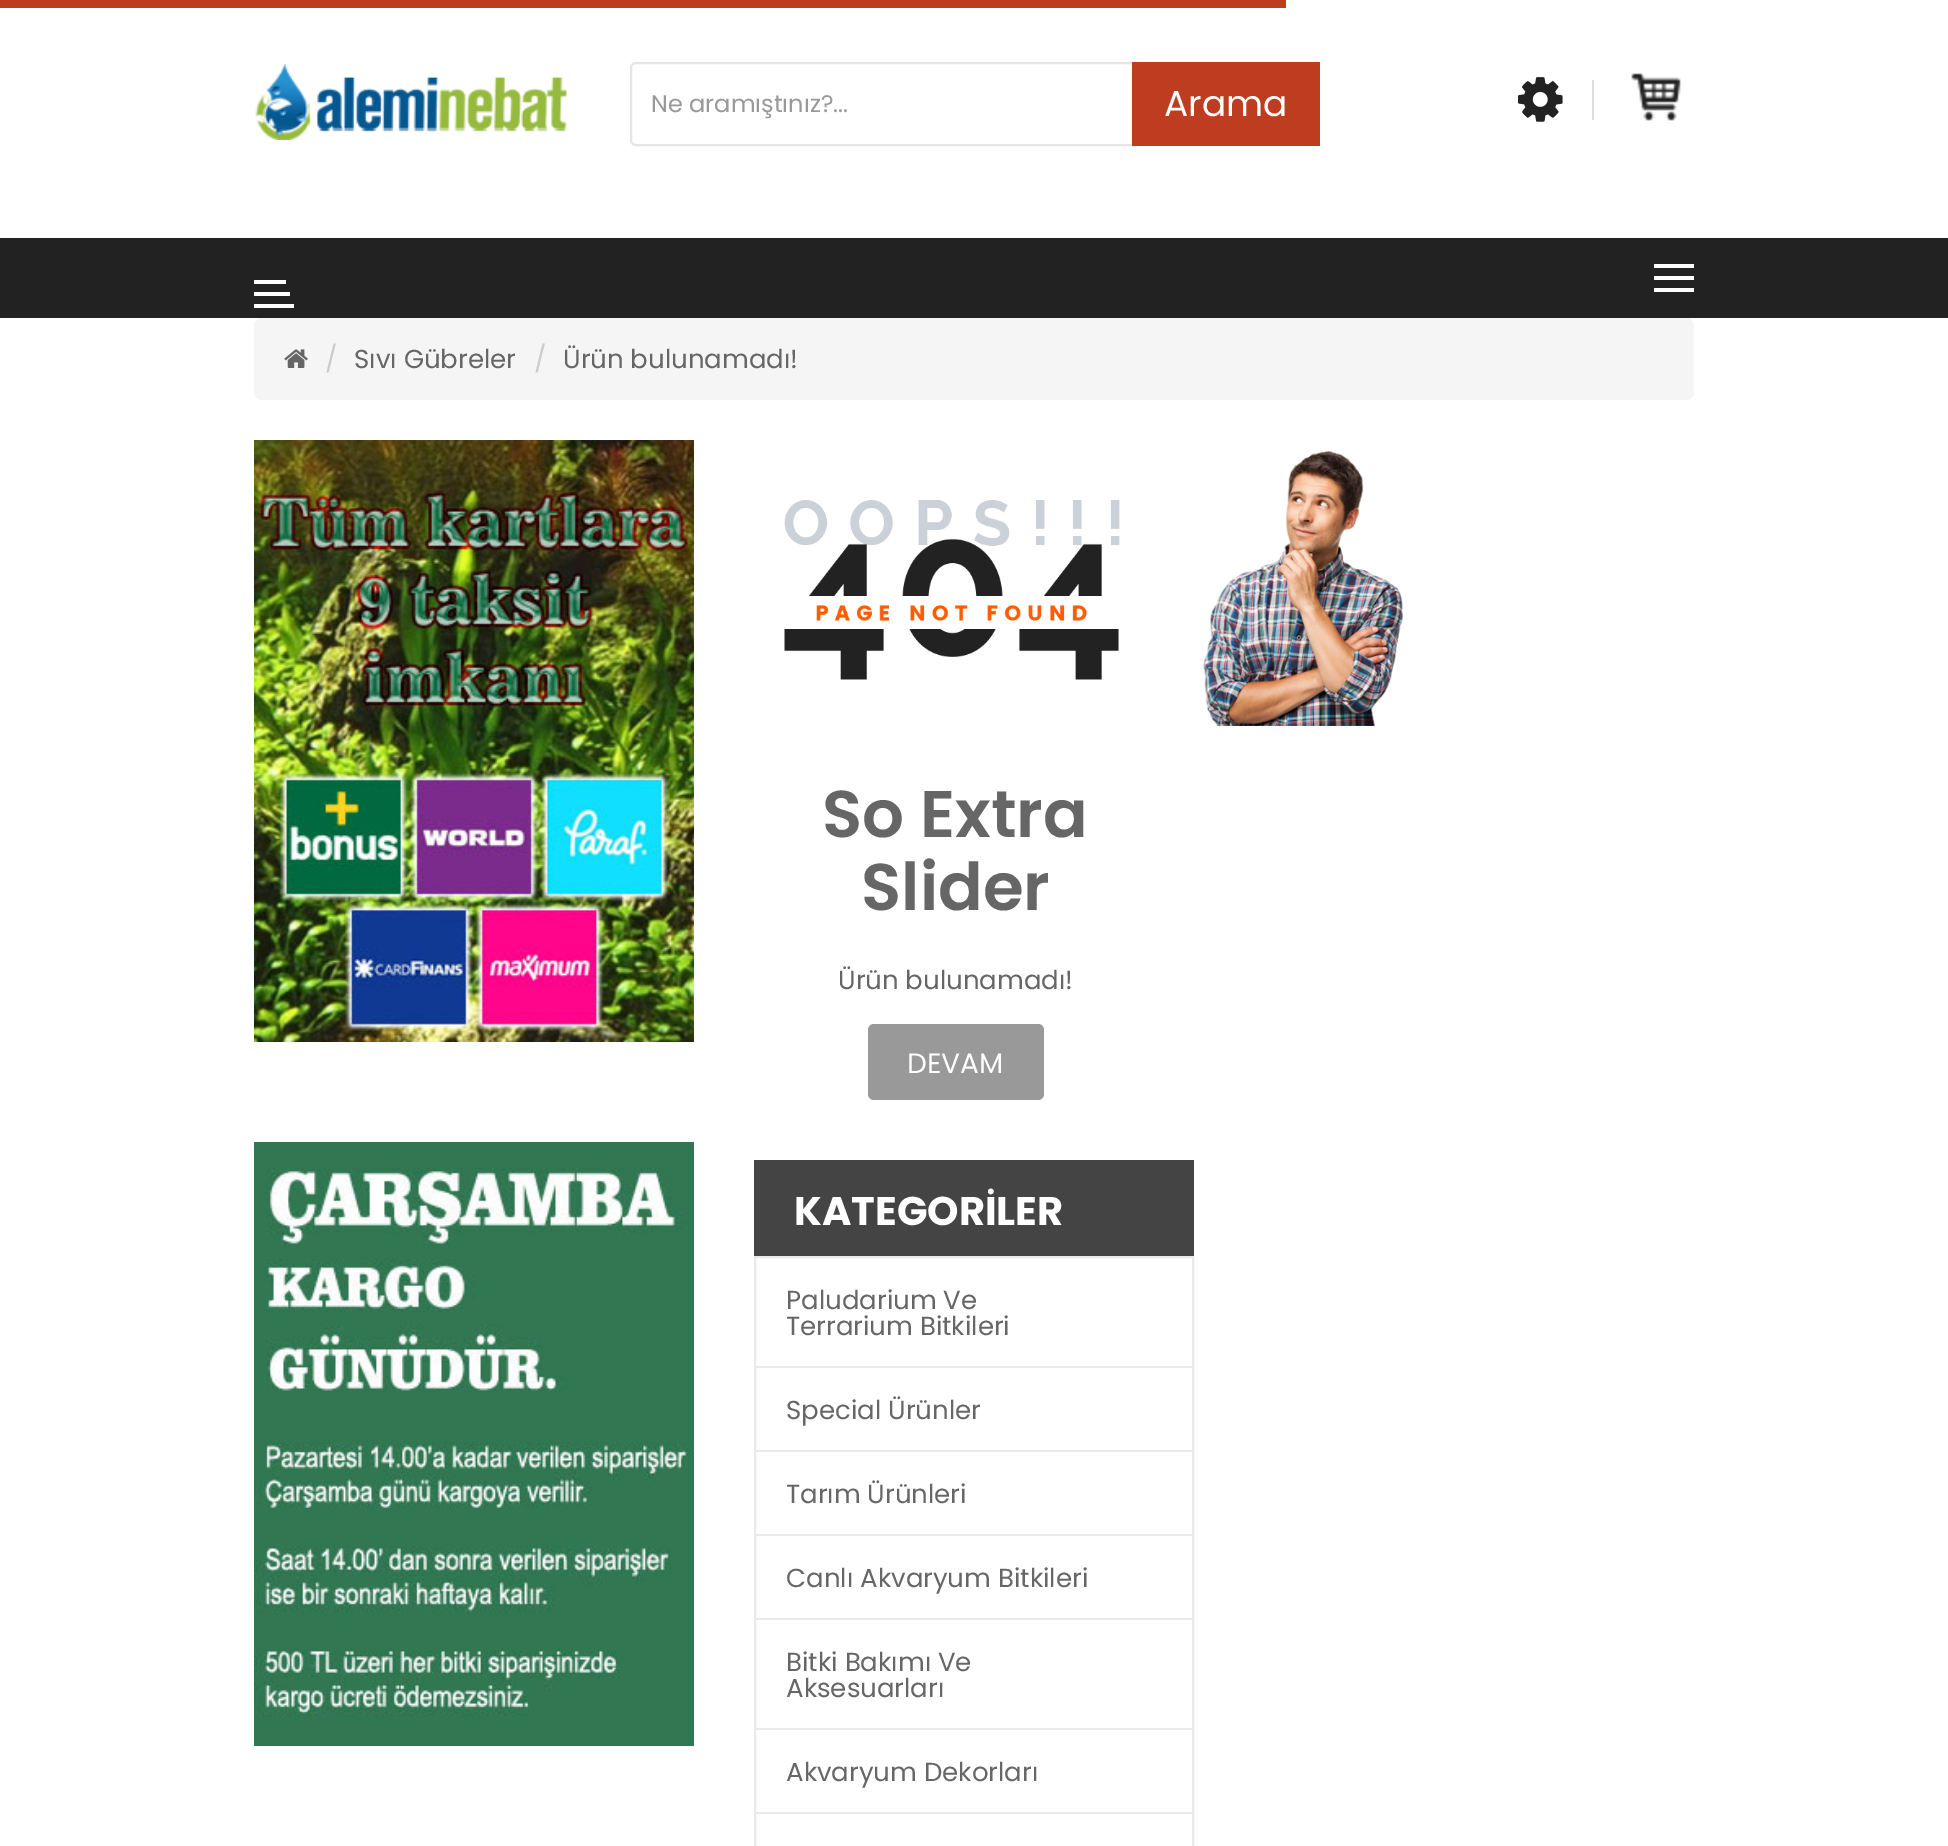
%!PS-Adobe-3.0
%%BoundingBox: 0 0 1948 1846
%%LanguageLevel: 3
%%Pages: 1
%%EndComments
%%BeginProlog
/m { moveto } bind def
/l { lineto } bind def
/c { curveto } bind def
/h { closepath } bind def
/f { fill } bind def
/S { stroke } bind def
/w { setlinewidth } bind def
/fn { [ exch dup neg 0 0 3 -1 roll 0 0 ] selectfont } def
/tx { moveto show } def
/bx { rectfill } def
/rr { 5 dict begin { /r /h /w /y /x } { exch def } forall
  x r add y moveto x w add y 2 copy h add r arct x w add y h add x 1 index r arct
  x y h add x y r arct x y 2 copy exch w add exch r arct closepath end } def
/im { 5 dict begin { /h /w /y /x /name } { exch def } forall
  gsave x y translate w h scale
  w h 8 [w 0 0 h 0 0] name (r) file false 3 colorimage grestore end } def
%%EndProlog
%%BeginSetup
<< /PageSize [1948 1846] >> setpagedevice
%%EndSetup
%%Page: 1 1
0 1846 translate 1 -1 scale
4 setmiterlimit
1 setgray
0 0 1948 1846 bx
0.745 0.239 0.125 setrgbcolor
0 0 1286 8 bx
(image0.raw) 255 64 312 76 im
0.898 setgray
2 w
636 63 m 1133 63 l 1133 145 l 636 145 l 633 145 631 143 631 140 c 631 68 l 631 65 633 63 636 63 c h S
/Poppins-Regular 24 fn
0.6 setgray
(Ne aramıştınız?...) 651 112 tx
0.745 0.239 0.125 setrgbcolor
1132 62 188 84 bx
/Poppins-Regular 36 fn
1 setgray
(Arama) 1164 116 tx
(image1.raw) 1518 77 45 45 im
0.867 setgray
1592 80 2 40 bx
(image2.raw) 1631 73 50 48 im
0.133 setgray
0 238 1948 80 bx
1 setgray
254 280 32 4 bx
254 292 36 4 bx
254 304 40 4 bx
1654 264 40 4 bx
1654 276 40 4 bx
1654 288 40 4 bx
0.961 setgray
254 318 1440 82 8 rr f
(image3.raw) 284 349 24 19 im
/Poppins-Regular 26 fn
0.8 setgray
(/) 325 368 tx
0.4 setgray
(Sıvı Gübreler) 354 368 tx
0.8 setgray
(/) 534 368 tx
0.4 setgray
(Ürün bulunamadı!) 563 368 tx
(image4.raw) 254 440 440 602 im
(image5.raw) 254 1142 440 604 im
(image6.raw) 1203 451 200 275 im
(image7.raw) 784 500 336 180 im
/Poppins-SemiBold 66 fn
(So Extra) 822 837 tx
(Slider) 861 910 tx
/Poppins-Regular 26 fn
(Ürün bulunamadı!) 838 989 tx
0.6 setgray
868 1024 176 76 6 rr f
/Poppins-Regular 28 fn
1 setgray
(DEVAM) 907 1073 tx
0.267 setgray
754 1160 440 96 bx
/Poppins-Bold 40 fn
1 setgray
(KATEGORİLER) 794 1225 tx
0.918 setgray
755 1257 438 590 rectstroke
756 1366 436 2 bx
/Poppins-Regular 26 fn
0.4 setgray
(Paludarium Ve) 786 1309 tx
(Terrarium Bitkileri) 786 1335 tx
0.918 setgray
756 1450 436 2 bx
0.4 setgray
(Special Ürünler) 786 1419 tx
0.918 setgray
756 1534 436 2 bx
0.4 setgray
(Tarım Ürünleri) 786 1503 tx
0.918 setgray
756 1618 436 2 bx
0.4 setgray
(Canlı Akvaryum Bitkileri) 786 1587 tx
0.918 setgray
756 1728 436 2 bx
0.4 setgray
(Bitki Bakımı Ve) 786 1671 tx
(Aksesuarları) 786 1697 tx
0.918 setgray
756 1812 436 2 bx
0.4 setgray
(Akvaryum Dekorları) 786 1781 tx
showpage
%%EOF
